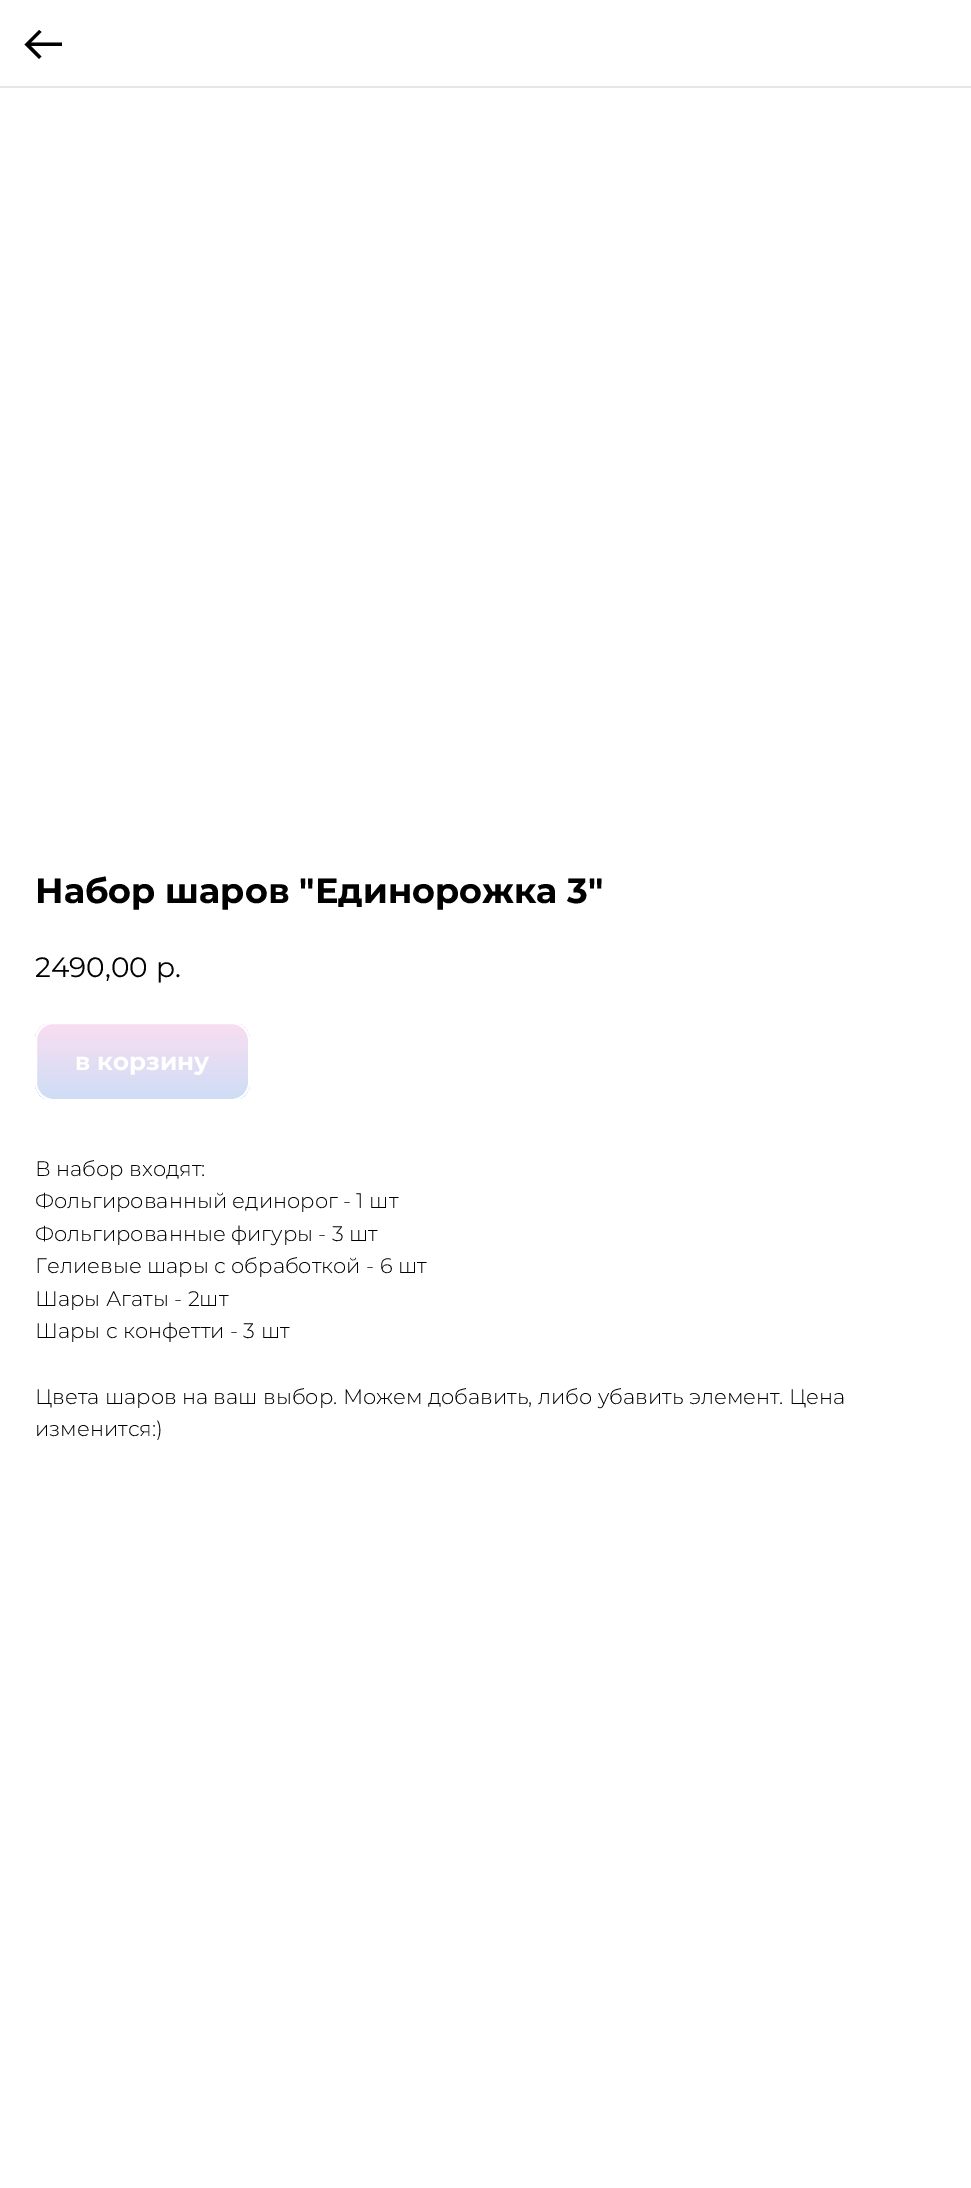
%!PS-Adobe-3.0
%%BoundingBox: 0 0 971 2188
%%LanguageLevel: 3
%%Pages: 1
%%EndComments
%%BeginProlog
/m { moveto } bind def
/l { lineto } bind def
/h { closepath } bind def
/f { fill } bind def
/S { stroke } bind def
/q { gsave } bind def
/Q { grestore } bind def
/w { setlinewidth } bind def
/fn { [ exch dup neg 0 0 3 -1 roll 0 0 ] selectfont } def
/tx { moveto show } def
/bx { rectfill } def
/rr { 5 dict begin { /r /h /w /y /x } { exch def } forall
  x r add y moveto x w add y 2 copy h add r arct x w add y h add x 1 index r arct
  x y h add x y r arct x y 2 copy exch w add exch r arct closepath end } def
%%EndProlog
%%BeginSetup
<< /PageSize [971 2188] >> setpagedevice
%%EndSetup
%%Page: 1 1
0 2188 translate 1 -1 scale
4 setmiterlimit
1 setgray
0 0 971 2188 bx
0.902 setgray
0 86 971 2 bx
0 setgray
39 30 m 41.5 32 l 31 42.5 l 62 42.5 l 62 46 l 31 46 l 41.5 56.5 l 39 59 l 24.5 44.5 l h f
/Montserrat-Bold 35 fn
(Набор шаров "Единорожка 3") 35 903 tx
/Montserrat-Regular 28 fn
(2490,00) 35 977 tx
(р.) 156 977 tx
q
35 1022 215 79 18 rr clip newpath
q 35 1024 m 250 1024 l 250 1099 l 35 1099 l h clip newpath
<< /ShadingType 2 /ColorSpace /DeviceRGB /Coords [143 1024 143 1099] /Extend [true true] /Function << /FunctionType 2 /Domain [0 1] /C0 [0.976 0.867 0.945] /C1 [0.808 0.867 0.965] /N 1 >> >> shfill Q
Q
1 setgray
2 w
36 1023 213 77 17 rr S
/Montserrat-Bold 24.5 fn
(в корзину) 75 1070 tx
/Montserrat-Light 21 fn
0 setgray
(В набор входят:) 35 1176 tx
(Фольгированный единорог - 1 шт) 35 1208 tx
(Фольгированные фигуры - 3 шт) 35 1241 tx
(Гелиевые шары с обработкой - 6 шт) 35 1273 tx
(Шары Агаты - 2шт) 35 1306 tx
(Шары с конфетти - 3 шт) 35 1338 tx
(Цвета шаров на ваш выбор. Можем добавить, либо убавить элемент. Цена) 35 1404 tx
(изменится:\)) 35 1436 tx
showpage
%%EOF
